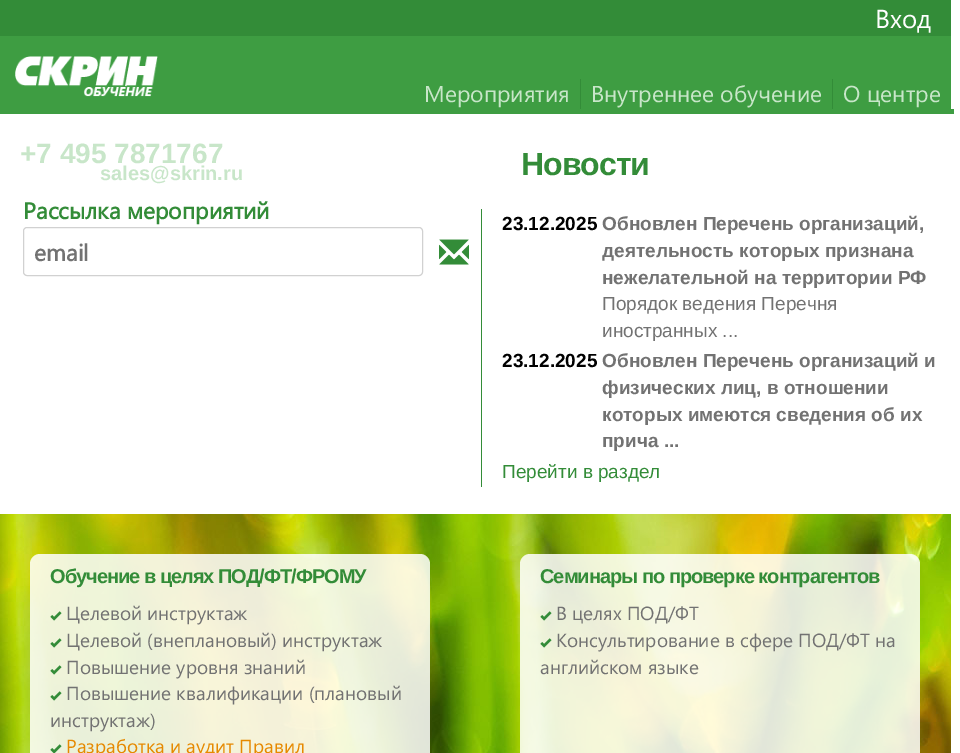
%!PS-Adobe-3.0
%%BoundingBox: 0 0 960 753
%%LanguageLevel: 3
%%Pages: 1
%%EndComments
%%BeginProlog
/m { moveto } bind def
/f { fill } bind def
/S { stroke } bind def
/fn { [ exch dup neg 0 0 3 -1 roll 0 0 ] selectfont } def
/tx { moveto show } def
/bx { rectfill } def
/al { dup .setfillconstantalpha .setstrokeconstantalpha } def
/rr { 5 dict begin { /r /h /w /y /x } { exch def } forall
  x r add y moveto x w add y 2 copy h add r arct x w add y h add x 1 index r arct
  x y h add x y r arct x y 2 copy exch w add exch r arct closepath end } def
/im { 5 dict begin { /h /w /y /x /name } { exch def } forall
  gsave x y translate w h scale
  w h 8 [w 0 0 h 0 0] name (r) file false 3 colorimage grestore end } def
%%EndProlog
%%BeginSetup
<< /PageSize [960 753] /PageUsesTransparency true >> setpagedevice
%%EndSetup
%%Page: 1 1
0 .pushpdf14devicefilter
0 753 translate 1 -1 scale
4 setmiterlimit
1 setgray
0 0 960 753 bx
0.2 0.549 0.22 setrgbcolor
0 0 951 36 bx
/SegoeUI-Regular 26 fn
1 setgray
(Вход) 875 28 tx
0.243 0.616 0.259 setrgbcolor
0 36 951 78 bx
(image0.raw) 15 56 143 41 im
/SegoeUI-Regular 23 fn
0.784 0.902 0.788 setrgbcolor
(Мероприятия) 424 102 tx
0.2 0.549 0.22 setrgbcolor
580 79 1 30 bx
0.784 0.902 0.788 setrgbcolor
(Внутреннее обучение) 591 102 tx
0.2 0.549 0.22 setrgbcolor
832 79 1 30 bx
0.243 0.616 0.259 setrgbcolor
951 109 3 5 bx
0.784 0.902 0.788 setrgbcolor
(О центре) 843 102 tx
/LiberationSans-Bold 28 fn
(+7 495 7871767) 20 163 tx
/LiberationSans-Bold 20 fn
(sales@skrin.ru) 100 180 tx
/SegoeUI-Bold 23 fn
0.2 0.549 0.22 setrgbcolor
(Рассылка мероприятий) 23 219 tx
0.82 setgray
23.5 227.5 399 48 3.5 rr S
0.447 setgray
(email) 34 261 tx
(image1.raw) 439 239 30 26 im
/LiberationSans-Bold 32 fn
0.2 0.549 0.22 setrgbcolor
521 175 m -1 0 (Новости) ashow
481 209 1 278 bx
/LiberationSans-Bold 19 fn
0 setgray
(23.12.2025) 502 230 tx
0.447 setgray
(Обновлен Перечень организаций,) 602 230 tx
(деятельность которых признана) 602 257 tx
(нежелательной на территории РФ) 602 284 tx
/LiberationSans-Regular 19 fn
(Порядок ведения Перечня) 602 310 tx
(иностранных ...) 602 337 tx
/LiberationSans-Bold 19 fn
0 setgray
(23.12.2025) 502 367 tx
0.447 setgray
(Обновлен Перечень организаций и) 602 367 tx
(физических лиц, в отношении) 602 394 tx
(которых имеются сведения об их) 602 421 tx
(прича ...) 602 447 tx
/LiberationSans-Regular 19 fn
0.2 0.549 0.22 setrgbcolor
(Перейти в раздел) 502 478 tx
(image2.raw) 0 514 951 239 im
0.85 al
1 setgray
30 554 400 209 10 rr f
/LiberationSans-Bold 20 fn
1 al
0.2 0.549 0.22 setrgbcolor
50 583 m -1 0 (Обучение в целях ПОД/ФТ/ФРОМУ) ashow
(image3.raw) 50 611 12 10 im
/SegoeUI-Regular 19 fn
0.447 setgray
(Целевой инструктаж) 66 620 tx
(image4.raw) 50 638 12 10 im
(Целевой \(внеплановый\) инструктаж) 66 647 tx
(image5.raw) 50 665 12 10 im
(Повышение уровня знаний) 66 674 tx
(image6.raw) 50 691 12 10 im
(Повышение квалификации \(плановый) 66 700 tx
(инструктаж\)) 50 727 tx
(image7.raw) 50 744 12 9 im
0.902 0.537 0 setrgbcolor
(Разработка и аудит Правил) 66 753 tx
0.85 al
1 setgray
520 554 400 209 10 rr f
/LiberationSans-Bold 20 fn
1 al
0.2 0.549 0.22 setrgbcolor
540 583 m -1 0 (Семинары по проверке контрагентов) ashow
(image8.raw) 540 611 12 10 im
/SegoeUI-Regular 19 fn
0.447 setgray
(В целях ПОД/ФТ) 556 620 tx
(image9.raw) 540 638 12 10 im
(Kонсультирование в сфере ПОД/ФТ на) 556 647 tx
(английском языке) 540 674 tx
.poppdf14devicefilter showpage
%%EOF
